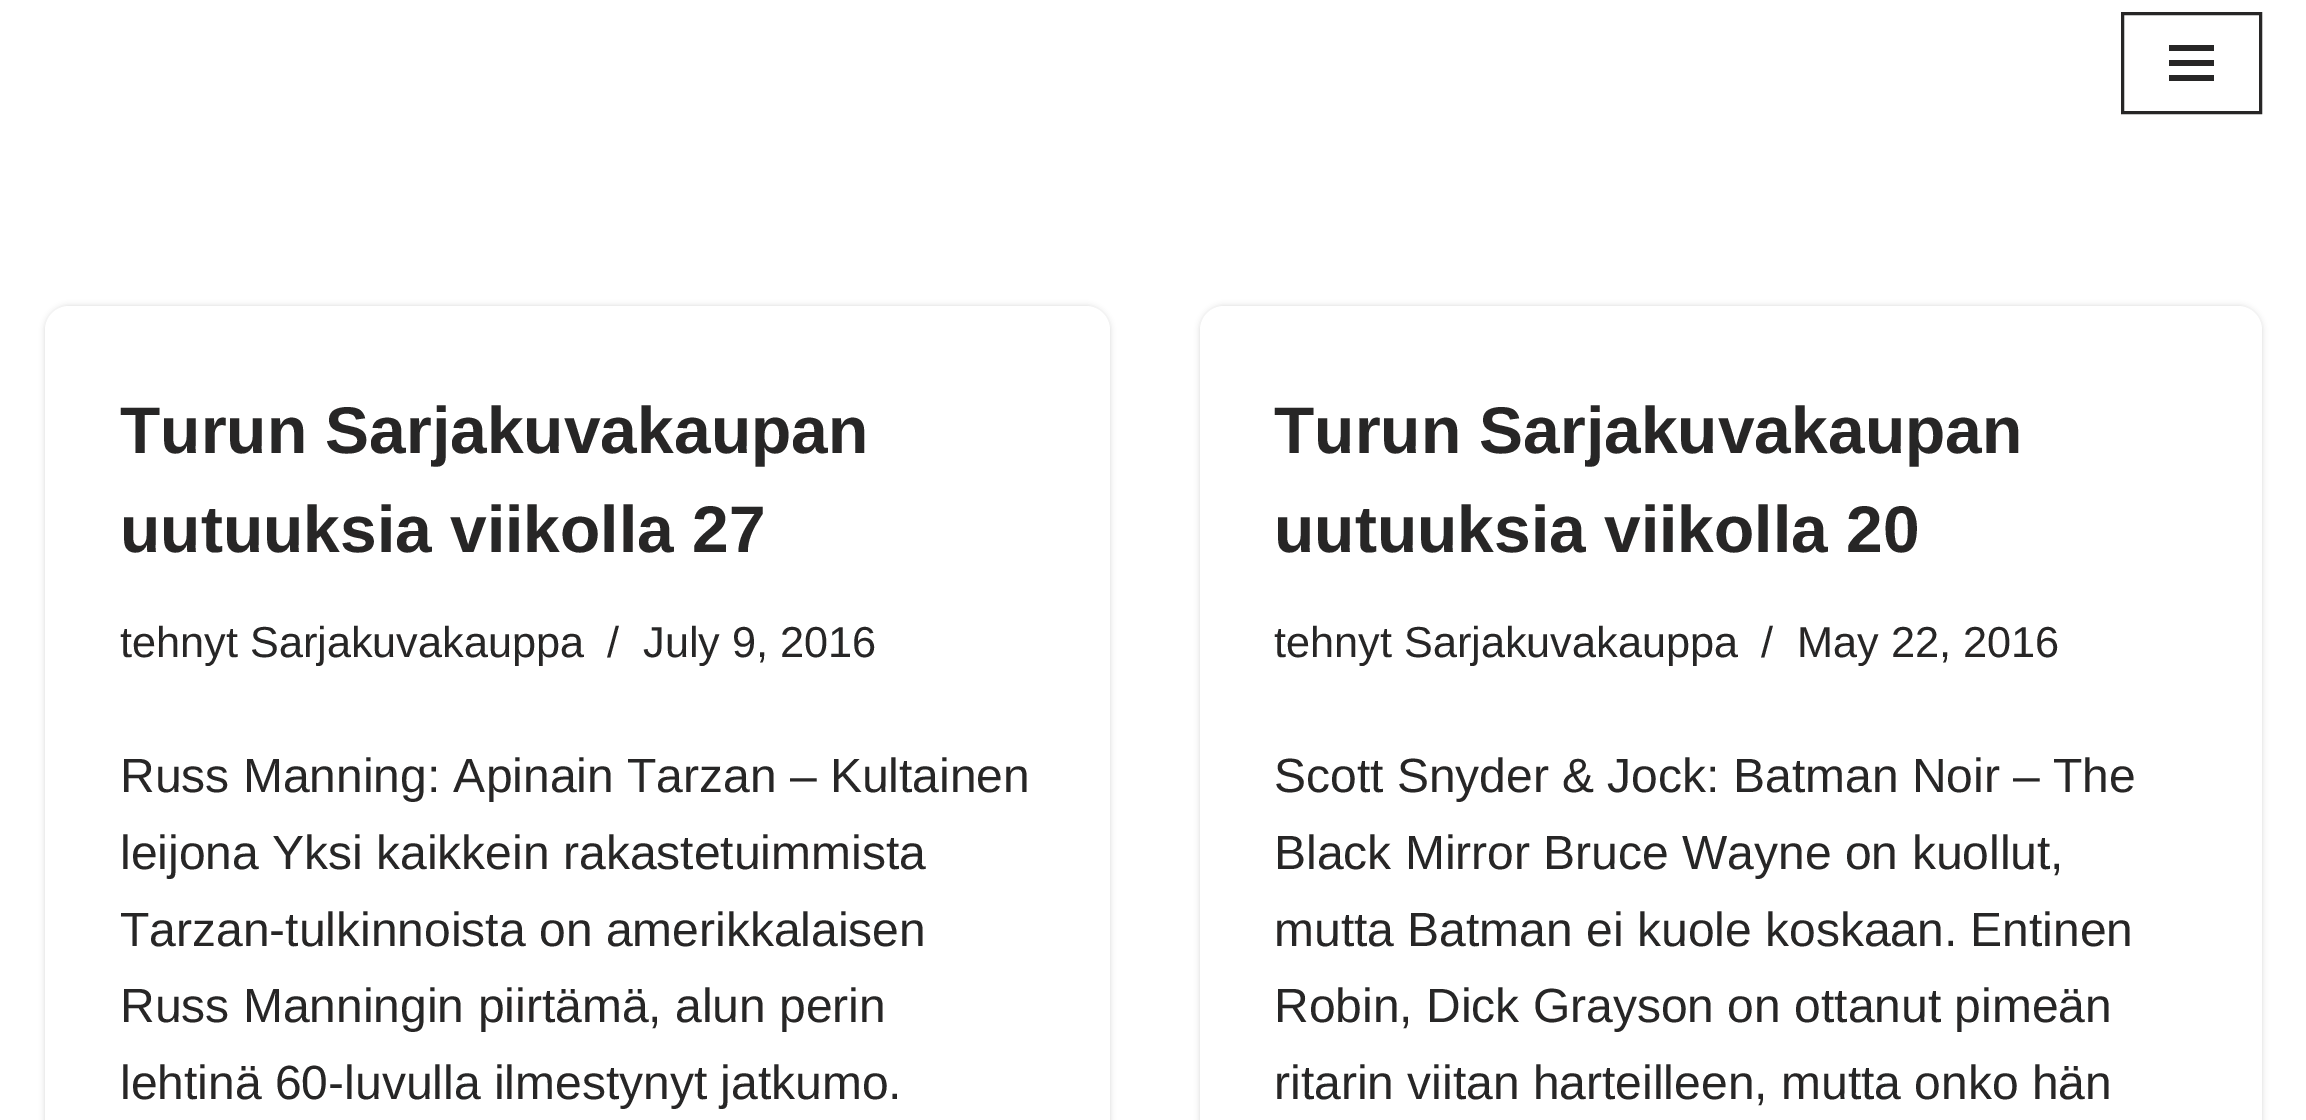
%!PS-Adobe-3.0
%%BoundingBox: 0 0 2306 1120
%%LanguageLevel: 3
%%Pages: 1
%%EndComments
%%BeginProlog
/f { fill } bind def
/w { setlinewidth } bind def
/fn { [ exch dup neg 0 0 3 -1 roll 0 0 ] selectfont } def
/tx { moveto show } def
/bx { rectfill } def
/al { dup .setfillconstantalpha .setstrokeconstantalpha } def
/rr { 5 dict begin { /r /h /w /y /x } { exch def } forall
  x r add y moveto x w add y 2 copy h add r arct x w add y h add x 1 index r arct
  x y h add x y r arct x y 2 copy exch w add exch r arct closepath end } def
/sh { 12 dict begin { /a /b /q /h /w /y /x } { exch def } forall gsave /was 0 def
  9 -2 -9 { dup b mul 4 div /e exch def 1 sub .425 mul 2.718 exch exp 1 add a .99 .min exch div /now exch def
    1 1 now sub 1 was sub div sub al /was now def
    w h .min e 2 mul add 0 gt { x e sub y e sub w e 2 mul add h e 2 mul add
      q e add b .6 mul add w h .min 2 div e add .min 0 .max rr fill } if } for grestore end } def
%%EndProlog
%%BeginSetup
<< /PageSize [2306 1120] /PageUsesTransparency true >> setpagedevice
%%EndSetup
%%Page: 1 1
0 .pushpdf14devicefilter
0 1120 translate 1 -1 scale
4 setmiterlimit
1 setgray
0 0 2306 1120 bx
0.153 0.149 0.149 setrgbcolor
3 w
2122.5 13.5 138 99 rectstroke
2169 45 45 6 bx
2169 60 45 6 bx
2169 75 45 6 bx
0 setgray
45 306 1065 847 24 3 0.15 sh
1 setgray
45 306 1065 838 24 rr f
/LiberationSans-Bold 66 fn
0.153 0.149 0.149 setrgbcolor
(Turun Sarjakuvakaupan) 120 453 tx
(uutuuksia viikolla 27) 120 552 tx
/LiberationSans-Regular 43.25 fn
(tehnyt Sarjakuvakauppa) 120 657 tx
(/) 607 657 tx
(July 9, 2016) 643 657 tx
/LiberationSans-Regular 48 fn
(Russ Manning: Apinain Tarzan – Kultainen) 120 792 tx
(leijona Yksi kaikkein rakastetuimmista) 120 869 tx
(Tarzan-tulkinnoista on amerikkalaisen) 120 946 tx
(Russ Manningin piirtämä, alun perin) 120 1022 tx
(lehtinä 60-luvulla ilmestynyt jatkumo.) 120 1099 tx
0 setgray
1200 306 1062 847 24 3 0.15 sh
1 setgray
1200 306 1062 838 24 rr f
/LiberationSans-Bold 66 fn
0.153 0.149 0.149 setrgbcolor
(Turun Sarjakuvakaupan) 1274 453 tx
(uutuuksia viikolla 20) 1274 552 tx
/LiberationSans-Regular 43.25 fn
(tehnyt Sarjakuvakauppa) 1274 657 tx
(/) 1761 657 tx
(May 22, 2016) 1797 657 tx
/LiberationSans-Regular 48 fn
(Scott Snyder & Jock: Batman Noir – The) 1274 792 tx
(Black Mirror Bruce Wayne on kuollut,) 1274 869 tx
(mutta Batman ei kuole koskaan. Entinen) 1274 946 tx
(Robin, Dick Grayson on ottanut pimeän) 1274 1022 tx
(ritarin viitan harteilleen, mutta onko hän) 1274 1099 tx
.poppdf14devicefilter showpage
%%EOF
